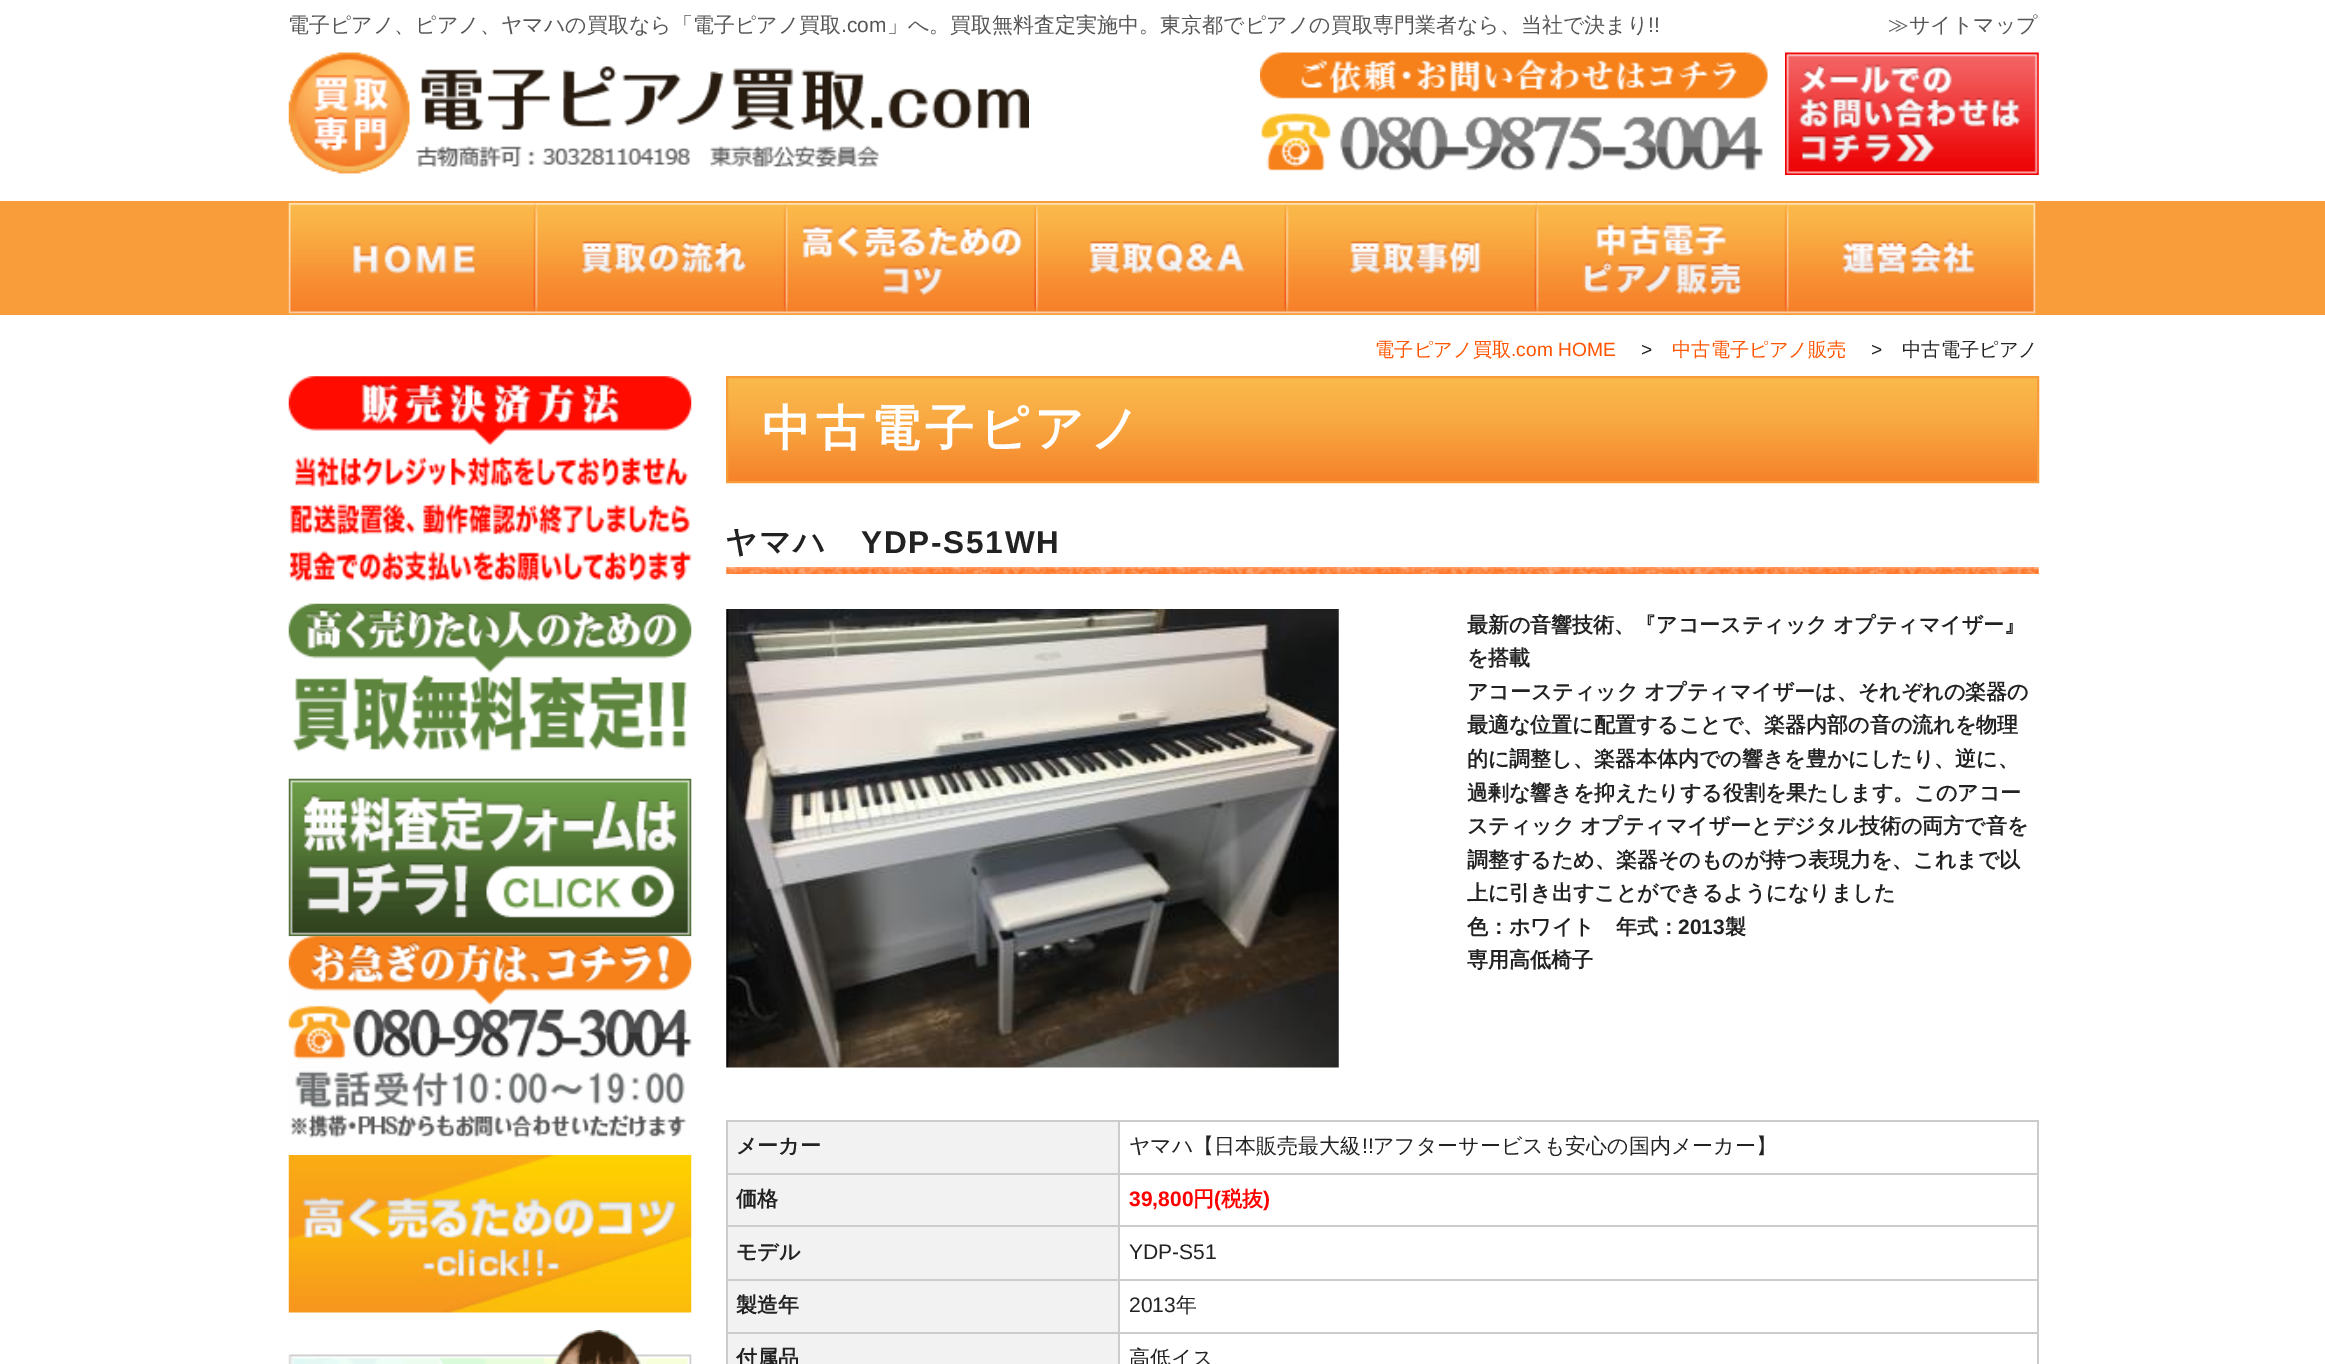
%!PS-Adobe-3.0
%%BoundingBox: 0 0 2325 1364
%%LanguageLevel: 3
%%Pages: 1
%%EndComments
%%BeginProlog
/m { moveto } bind def
/l { lineto } bind def
/h { closepath } bind def
/q { gsave } bind def
/Q { grestore } bind def
/w { setlinewidth } bind def
/fn { [ exch dup neg 0 0 3 -1 roll 0 0 ] selectfont } def
/tx { moveto show } def
/bx { rectfill } def
/im { 5 dict begin { /h /w /y /x /name } { exch def } forall
  gsave x y translate w h scale
  w h 8 [w 0 0 h 0 0] name (r) file false 3 colorimage grestore end } def
%%EndProlog
%%BeginSetup
<< /PageSize [2325 1364] >> setpagedevice
%%EndSetup
%%Page: 1 1
0 1364 translate 1 -1 scale
4 setmiterlimit
1 setgray
0 0 2325 1364 bx
/WenQuanYiZenHei-Medium 21 fn
0.337 setgray
(電子ピアノ、ピアノ、ヤマハの買取なら「電子ピアノ買取) 288 32 tx
/LiberationSans-Regular 21 fn
(.com) 841 32 tx
/WenQuanYiZenHei-Medium 21 fn
(」へ。買取無料査定実施中。東京都でピアノの買取専門業者なら、当社で決まり) 887 32 tx
/LiberationSans-Regular 21 fn
(!!) 1648 32 tx
/WenQuanYiZenHei-Medium 21 fn
(≫サイトマップ) 1888 32 tx
(image0.raw) 288 52 741 122 im
(image1.raw) 1260 52 508 119 im
(image2.raw) 1785 52 254 123 im
0.973 0.616 0.227 setrgbcolor
0 201 2325 114 bx
(image3.raw) 288 203 248 111 im
(image4.raw) 535 203 251 111 im
(image5.raw) 785 203 251 111 im
(image6.raw) 1036 203 251 111 im
(image7.raw) 1286 203 251 111 im
(image8.raw) 1536 203 251 111 im
(image9.raw) 1786 203 250 111 im
(image10.raw) 288 376 404 206 im
(image11.raw) 288 603 404 149 im
(image12.raw) 288 778 404 159 im
(image13.raw) 288 936 404 202 im
(image14.raw) 288 1155 404 158 im
(image15.raw) 288 1330 404 34 im
/WenQuanYiZenHei-Medium 19.25 fn
1 0.329 0 setrgbcolor
(電子ピアノ買取) 1375 356 tx
/LiberationSans-Regular 19.25 fn
(.com HOME) 1511 356 tx
0.133 setgray
(>) 1641 356 tx
/WenQuanYiZenHei-Medium 19.25 fn
1 0.329 0 setrgbcolor
(中古電子ピアノ販売) 1672 356 tx
/LiberationSans-Regular 19.25 fn
0.133 setgray
(>) 1871 356 tx
/WenQuanYiZenHei-Medium 19.25 fn
(中古電子ピアノ) 1902 356 tx
q 728 378 m 2037 378 l 2037 481 l 728 481 l h clip newpath
<< /ShadingType 2 /ColorSpace /DeviceRGB /Coords [1383 378 1383 481] /Extend [true true] /Function << /FunctionType 3 /Domain [0 1] /Functions [<< /FunctionType 2 /Domain [0 1] /C0 [0.98 0.729 0.294] /C1 [0.976 0.663 0.259] /N 1 >> << /FunctionType 2 /Domain [0 1] /C0 [0.976 0.663 0.259] /C1 [0.965 0.51 0.165] /N 1 >>] /Bounds [0.41] /Encode [0 1 0 1] >> >> shfill Q
0.973 0.612 0.224 setrgbcolor
2 w
727 377 1311 105 rectstroke
/WenQuanYiZenHei-Bold 49 fn
1 setgray
762 445 m 5.25 0 (中古電子ピアノ) ashow
(image16.raw) 726 567 1313 7 im
/WenQuanYiZenHei-Bold 31.5 fn
0.133 setgray
725 553 m 1.75 0 (ヤマハ) ashow
/LiberationSans-Bold 31.5 fn
861 553 m 1.75 0 (YDP-S51WH) ashow
(image17.raw) 726 609 613 459 im
/WenQuanYiZenHei-Bold 21 fn
(最新の音響技術、『アコースティック) 1467 632 tx
(オプティマイザー』) 1833 632 tx
(を搭載) 1467 665 tx
(アコースティック) 1467 699 tx
(オプティマイザーは、それぞれの楽器の) 1644 699 tx
(最適な位置に配置することで、楽器内部の音の流れを物理) 1467 732 tx
(的に調整し、楽器本体内での響きを豊かにしたり、逆に、) 1467 766 tx
(過剰な響きを抑えたりする役割を果たします。このアコー) 1467 800 tx
(スティック) 1467 833 tx
(オプティマイザーとデジタル技術の両方で音を) 1580 833 tx
(調整するため、楽器そのものが持つ表現力を、これまで以) 1467 867 tx
(上に引き出すことができるようになりました) 1467 900 tx
(色：ホワイト　年式：) 1467 934 tx
/LiberationSans-Bold 21 fn
(2013) 1678 934 tx
/WenQuanYiZenHei-Bold 21 fn
(製) 1725 934 tx
(専用高低椅子) 1467 967 tx
0.949 setgray
728 1122 390 51 bx
0.8 setgray
1118 1120 921 2 bx
1118 1173 921 2 bx
1118 1225 921 2 bx
1118 1279 921 2 bx
1118 1332 921 2 bx
1118 1332 2 32 bx
726 1332 394 2 bx
1118 1279 2 55 bx
726 1279 394 2 bx
1118 1225 2 56 bx
726 1225 394 2 bx
1118 1173 2 54 bx
726 1173 394 2 bx
1118 1120 2 54 bx
726 1120 394 2 bx
726 1332 2 32 bx
726 1279 2 55 bx
726 1225 2 56 bx
726 1173 2 54 bx
726 1120 2 54 bx
0.133 setgray
(メーカー) 736 1153 tx
0.8 setgray
2037 1332 2 32 bx
2037 1279 2 55 bx
2037 1225 2 56 bx
2037 1173 2 54 bx
2037 1120 2 54 bx
/WenQuanYiZenHei-Medium 21 fn
0.133 setgray
(ヤマハ【日本販売最大級) 1129 1153 tx
/LiberationSans-Regular 21 fn
(!!) 1362 1153 tx
/WenQuanYiZenHei-Medium 21 fn
(アフターサービスも安心の国内メーカー】) 1373 1153 tx
0.949 setgray
728 1175 390 50 bx
/WenQuanYiZenHei-Bold 21 fn
0.133 setgray
(価格) 736 1206 tx
/LiberationSans-Bold 21 fn
1 0 0 setrgbcolor
(39,800) 1129 1206 tx
/WenQuanYiZenHei-Bold 21 fn
(円) 1193 1206 tx
/LiberationSans-Bold 21 fn
(\() 1214 1206 tx
/WenQuanYiZenHei-Bold 21 fn
(税抜) 1221 1206 tx
/LiberationSans-Bold 21 fn
(\)) 1263 1206 tx
0.949 setgray
728 1227 390 52 bx
/WenQuanYiZenHei-Bold 21 fn
0.133 setgray
(モデル) 736 1259 tx
/LiberationSans-Regular 21 fn
(YDP-S51) 1129 1259 tx
0.949 setgray
728 1281 390 51 bx
/WenQuanYiZenHei-Bold 21 fn
0.133 setgray
(製造年) 736 1312 tx
/LiberationSans-Regular 21 fn
(2013) 1129 1312 tx
/WenQuanYiZenHei-Medium 21 fn
(年) 1176 1312 tx
0.949 setgray
728 1334 390 30 bx
/WenQuanYiZenHei-Bold 21 fn
0.133 setgray
(付属品) 736 1365 tx
/WenQuanYiZenHei-Medium 21 fn
(高低イス) 1129 1365 tx
showpage
%%EOF
